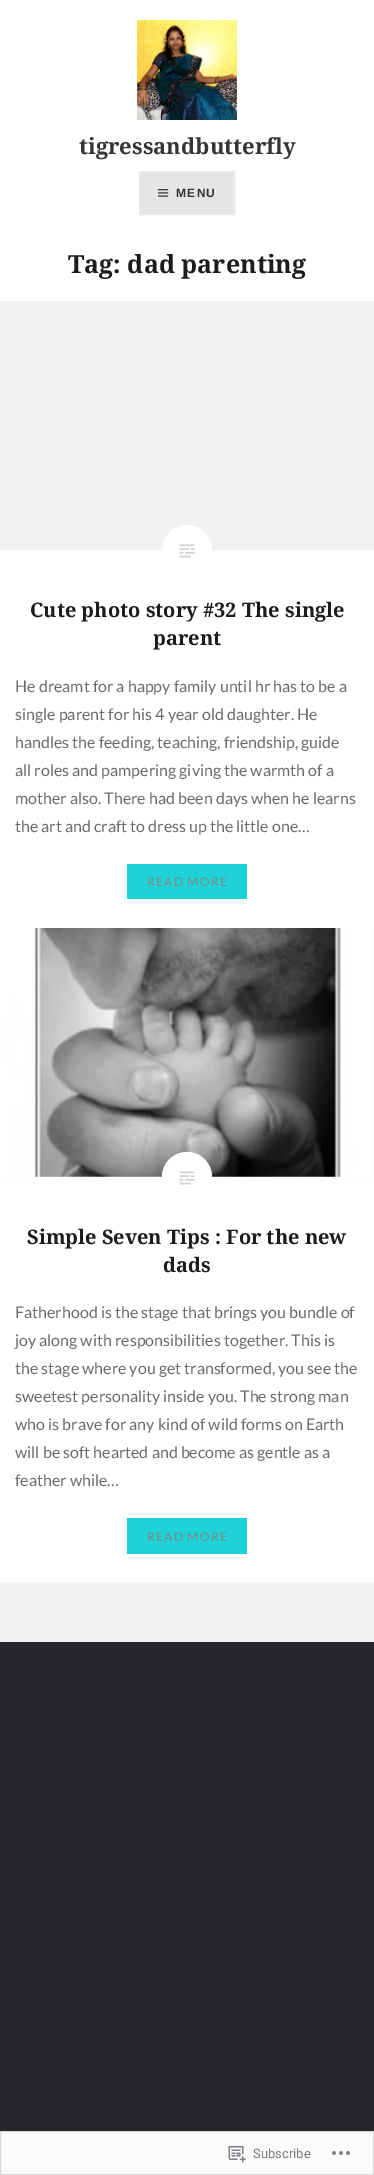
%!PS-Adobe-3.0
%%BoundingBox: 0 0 374 2175
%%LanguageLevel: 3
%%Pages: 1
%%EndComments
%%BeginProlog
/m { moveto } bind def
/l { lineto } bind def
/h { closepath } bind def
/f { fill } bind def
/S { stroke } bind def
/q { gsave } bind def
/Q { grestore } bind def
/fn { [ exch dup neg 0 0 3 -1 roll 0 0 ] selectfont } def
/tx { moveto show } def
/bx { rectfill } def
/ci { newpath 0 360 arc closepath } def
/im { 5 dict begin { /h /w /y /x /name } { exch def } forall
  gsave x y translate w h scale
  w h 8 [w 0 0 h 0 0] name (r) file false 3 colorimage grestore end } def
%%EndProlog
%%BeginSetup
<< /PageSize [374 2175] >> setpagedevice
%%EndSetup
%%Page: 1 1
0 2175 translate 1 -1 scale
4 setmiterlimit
0.141 0.149 0.161 setrgbcolor
0 0 374 2175 bx
1 setgray
0 0 374 301 bx
(image0.raw) 137 20 100 100 im
/NotoSerif-Bold 22 fn
0.208 setgray
(tigressandbutterfly) 79 154 tx
0.902 setgray
139.5 171.5 m 234.5 171.5 l 234.5 214.5 l 139.5 214.5 l h q f Q
0.922 setgray
S
(image1.raw) 158 189 11 8 im
/LiberationSans-Bold 12 fn
0.208 setgray
176 197 m 1.25 0 (MENU) ashow
/NotoSerif-Bold 25 fn
0.102 0.11 0.118 setrgbcolor
(Tag: dad parenting) 68 273 tx
1 setgray
0 550 374 378 bx
0.949 setgray
0 301 374 249 bx
1 setgray
187 550 25 ci f
(image2.raw) 179 544 16 14 im
/NotoSerif-Bold 20 fn
0.102 0.11 0.118 setrgbcolor
(Cute photo story #32 The single) 30 617 tx
(parent) 153 645 tx
/Lato-Regular 16 fn
0.416 0.424 0.431 setrgbcolor
(He dreamt for a happy family until hr has to be a) 15 692 tx
(single parent for his 4 year old daughter. He) 15 720 tx
(handles the feeding, teaching, friendship, guide) 15 748 tx
(all roles and pampering giving the warmth of a) 15 776 tx
(mother also. There had been days when he learns) 15 804 tx
(the art and craft to dress up the little one…) 15 832 tx
0.118 0.827 0.843 setrgbcolor
127 864 120 35 bx
/Lato-Regular 12 fn
0.518 setgray
147 886 m 1.25 0 (READ MORE) ashow
1 setgray
0 1177 374 405 bx
0.949 setgray
0 928 374 249 bx
(image3.raw) 0 928 374 249 im
1 setgray
187 1177 25 ci f
(image2.raw) 179 1171 16 14 im
/NotoSerif-Bold 20 fn
0.102 0.11 0.118 setrgbcolor
(Simple Seven Tips : For the new) 27 1244 tx
(dads) 163 1272 tx
/Lato-Regular 16 fn
0.416 0.424 0.431 setrgbcolor
(Fatherhood is the stage that brings you bundle of) 15 1318 tx
(joy along with responsibilities together. This is) 15 1346 tx
(the stage where you get transformed, you see the) 15 1374 tx
(sweetest personality inside you. The strong man) 15 1402 tx
(who is brave for any kind of wild forms on Earth) 15 1430 tx
(will be soft hearted and become as gentle as a) 15 1458 tx
(feather while…) 15 1486 tx
0.118 0.827 0.843 setrgbcolor
127 1518 120 36 bx
/Lato-Regular 12 fn
0.518 setgray
147 1541 m 1.25 0 (READ MORE) ashow
0.949 setgray
0 1582 374 60 bx
0.984 setgray
0.5 2131.5 m 373.5 2131.5 l 373.5 2174.5 l 0.5 2174.5 l h q f Q
0.847 0.847 0.855 setrgbcolor
S
(image4.raw) 228 2146 18 17 im
/Roboto-Regular 13 fn
0.463 0.478 0.502 setrgbcolor
(Subscribe) 253 2158 tx
(image5.raw) 332 2151 18 4 im
showpage
%%EOF
